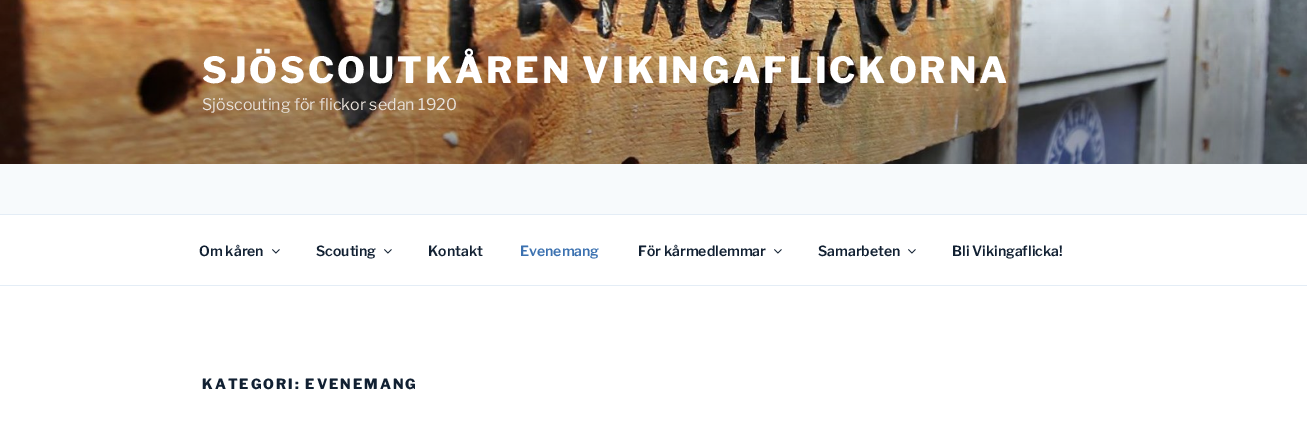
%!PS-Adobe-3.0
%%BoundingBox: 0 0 1307 439
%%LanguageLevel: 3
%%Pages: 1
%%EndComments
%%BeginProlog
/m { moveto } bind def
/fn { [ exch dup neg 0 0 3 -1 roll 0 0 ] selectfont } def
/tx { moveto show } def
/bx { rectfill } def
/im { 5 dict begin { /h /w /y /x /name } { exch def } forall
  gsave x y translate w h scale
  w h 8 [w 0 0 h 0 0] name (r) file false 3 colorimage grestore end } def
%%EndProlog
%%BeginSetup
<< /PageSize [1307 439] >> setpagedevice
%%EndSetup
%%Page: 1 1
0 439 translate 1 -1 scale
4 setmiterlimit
1 setgray
0 0 1307 439 bx
0.969 0.98 0.988 setrgbcolor
0 164 1307 50 bx
(image0.raw) 0 0 1307 164 im
/LibreFranklin-Thin 36 fn
1 setgray
202 83 m 2.9 0 (SJÖSCOUTKÅREN VIKINGAFLICKORNA) ashow
/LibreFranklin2-Thin 16 fn
0.91 0.882 0.855 setrgbcolor
(Sjöscouting för flickor sedan 1920) 202 110 tx
0.894 0.929 0.965 setrgbcolor
0 214 1307 1 bx
0 285 1307 1 bx
/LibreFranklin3-Thin 14 fn
0.067 0.125 0.196 setrgbcolor
(Om kåren) 199 256 tx
(image1.raw) 272 249 8 5 im
(Scouting) 316 256 tx
(image1.raw) 384 249 8 5 im
(Kontakt) 428 256 tx
0.231 0.443 0.69 setrgbcolor
(Evenemang) 520 256 tx
0.067 0.125 0.196 setrgbcolor
(För kårmedlemmar) 638 256 tx
(image1.raw) 774 249 8 5 im
(Samarbeten) 818 256 tx
(image1.raw) 908 249 8 5 im
(Bli Vikingaflicka!) 952 256 tx
/LibreFranklin-Thin 14 fn
202 389 m 2 0 (KATEGORI: EVENEMANG) ashow
showpage
%%EOF
